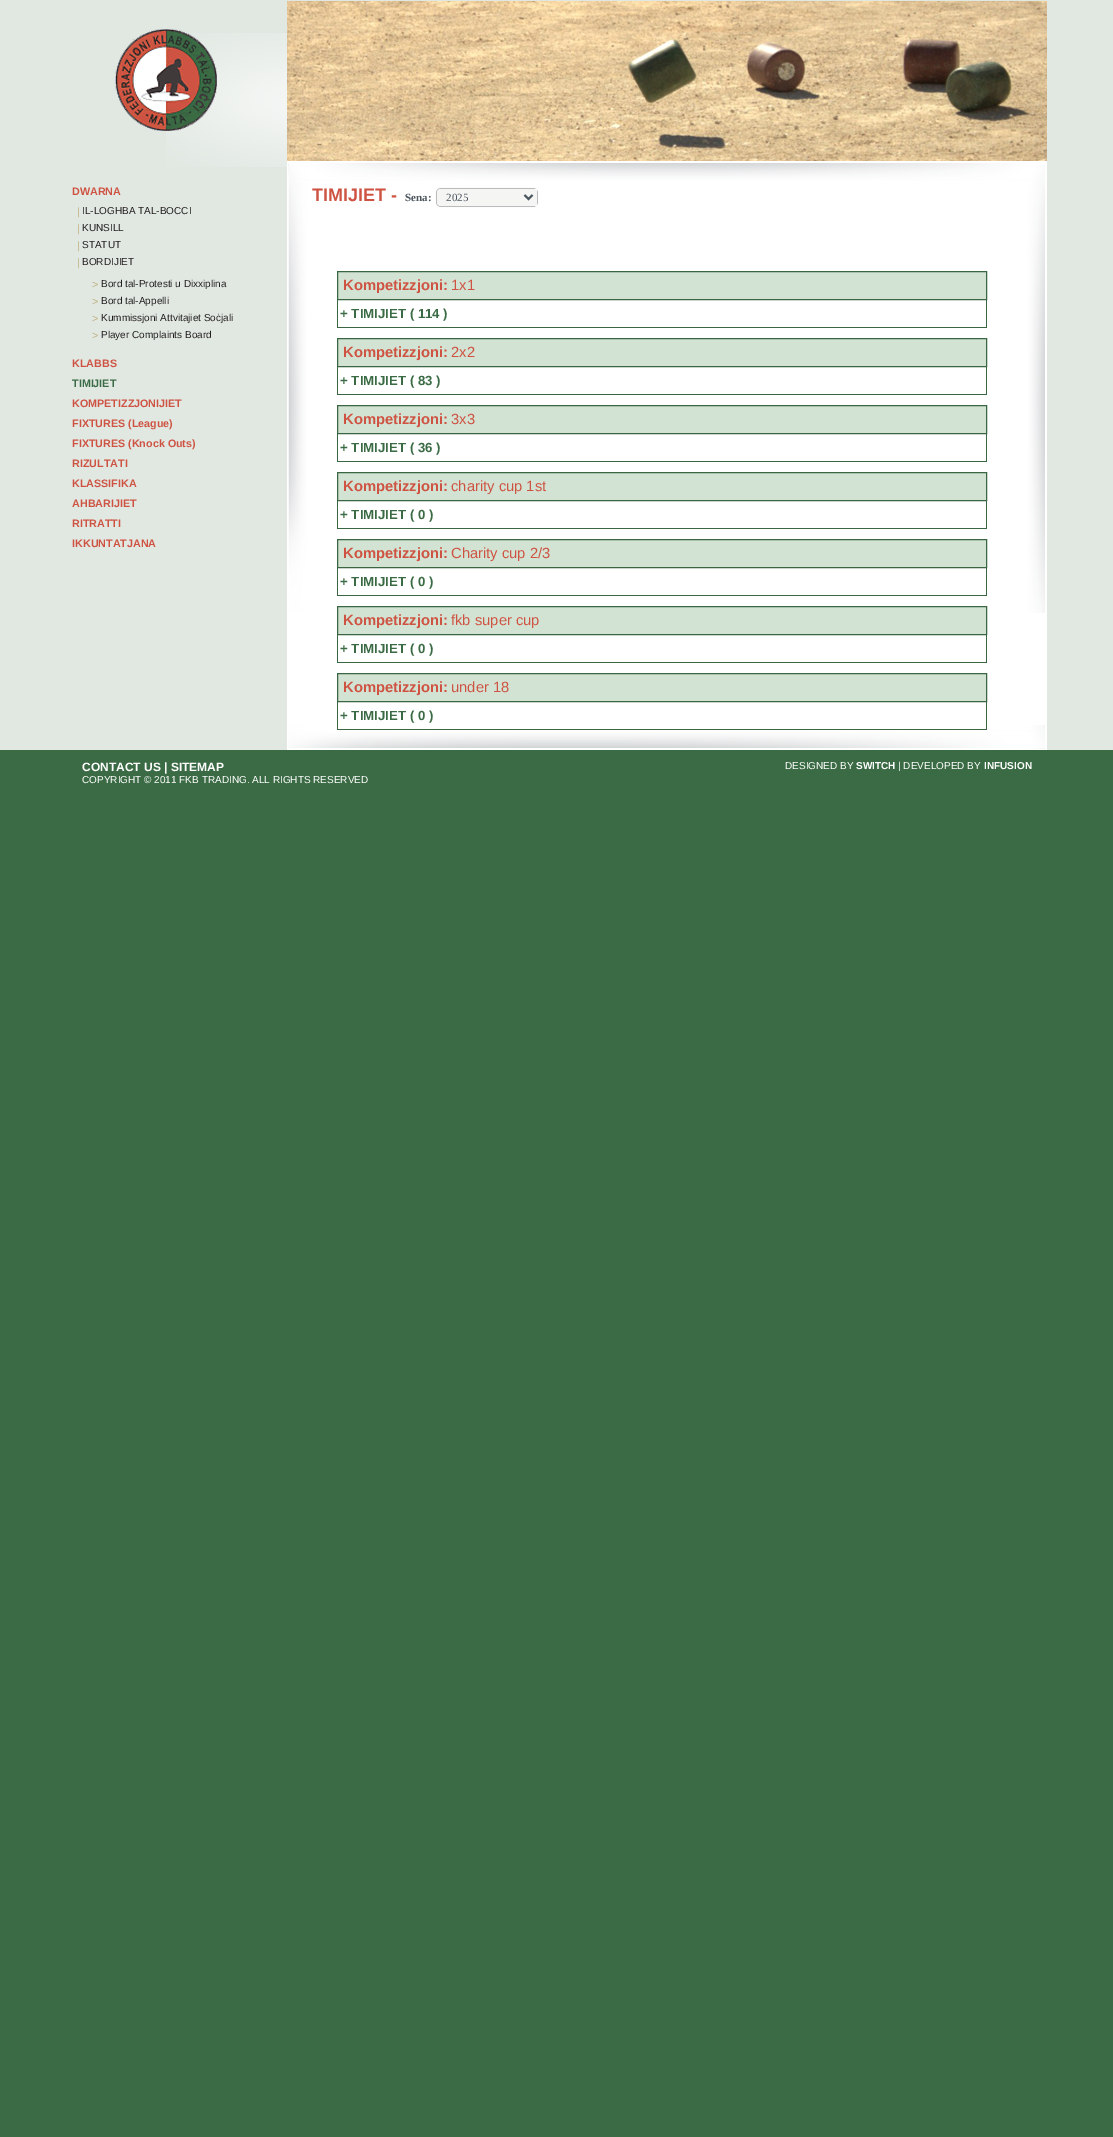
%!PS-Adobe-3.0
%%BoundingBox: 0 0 1113 2137
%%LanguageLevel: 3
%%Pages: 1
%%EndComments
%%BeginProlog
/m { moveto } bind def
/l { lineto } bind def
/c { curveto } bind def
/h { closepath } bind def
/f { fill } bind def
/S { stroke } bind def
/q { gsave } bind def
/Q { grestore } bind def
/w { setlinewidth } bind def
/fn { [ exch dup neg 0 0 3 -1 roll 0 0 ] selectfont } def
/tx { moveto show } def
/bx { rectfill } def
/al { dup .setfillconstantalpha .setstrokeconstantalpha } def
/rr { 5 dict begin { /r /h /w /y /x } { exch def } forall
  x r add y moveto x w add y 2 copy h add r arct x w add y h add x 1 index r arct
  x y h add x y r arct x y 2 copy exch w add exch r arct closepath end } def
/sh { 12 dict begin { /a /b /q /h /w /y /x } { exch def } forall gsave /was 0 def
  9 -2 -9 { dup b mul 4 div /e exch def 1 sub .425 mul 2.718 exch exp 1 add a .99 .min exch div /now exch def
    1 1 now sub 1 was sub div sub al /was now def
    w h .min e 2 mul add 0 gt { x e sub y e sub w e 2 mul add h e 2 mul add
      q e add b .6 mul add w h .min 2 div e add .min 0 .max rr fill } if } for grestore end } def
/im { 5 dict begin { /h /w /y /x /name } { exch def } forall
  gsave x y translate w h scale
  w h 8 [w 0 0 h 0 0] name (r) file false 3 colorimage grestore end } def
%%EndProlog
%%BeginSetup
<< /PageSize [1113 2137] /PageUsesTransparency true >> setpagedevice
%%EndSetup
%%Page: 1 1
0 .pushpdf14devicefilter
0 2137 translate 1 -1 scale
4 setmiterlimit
0.227 0.42 0.267 setrgbcolor
0 0 1113 2137 bx
0.882 0.91 0.886 setrgbcolor
0 0 1113 750 bx
(image0.raw) 166 33 121 134 im
(image1.raw) 115 29 102 102 im
/LiberationSans-Bold 10.75 fn
0.808 0.325 0.259 setrgbcolor
(DWARNA) 72 195 tx
/LiberationSans-Regular 10.75 fn
0.753 0.686 0.49 setrgbcolor
(|) 77 215 tx
/LiberationSans-Regular 10 fn
0.137 0.122 0.125 setrgbcolor
(IL-LOGHBA TAL-BOCCI) 82 214 tx
/LiberationSans-Regular 10.75 fn
0.753 0.686 0.49 setrgbcolor
(|) 77 232 tx
/LiberationSans-Regular 10 fn
0.137 0.122 0.125 setrgbcolor
(KUNSILL) 82 231 tx
/LiberationSans-Regular 10.75 fn
0.753 0.686 0.49 setrgbcolor
(|) 77 249 tx
/LiberationSans-Regular 10 fn
0.137 0.122 0.125 setrgbcolor
(STATUT) 82 248 tx
/LiberationSans-Regular 10.75 fn
0.753 0.686 0.49 setrgbcolor
(|) 77 266 tx
/LiberationSans-Regular 10 fn
0.137 0.122 0.125 setrgbcolor
(BORDIJIET) 82 265 tx
/LiberationSans-Regular 10.75 fn
0.753 0.686 0.49 setrgbcolor
(>) 92 288 tx
/LiberationSans-Regular 10 fn
0.137 0.122 0.125 setrgbcolor
(Bord tal-Protesti u Dixxiplina) 101 287 tx
/LiberationSans-Regular 10.75 fn
0.753 0.686 0.49 setrgbcolor
(>) 92 305 tx
/LiberationSans-Regular 10 fn
0.137 0.122 0.125 setrgbcolor
(Bord tal-Appelli) 101 304 tx
/LiberationSans-Regular 10.75 fn
0.753 0.686 0.49 setrgbcolor
(>) 92 322 tx
/LiberationSans-Regular 10 fn
0.137 0.122 0.125 setrgbcolor
(Kummissjoni Attvitajiet Soċjali) 101 321 tx
/LiberationSans-Regular 10.75 fn
0.753 0.686 0.49 setrgbcolor
(>) 92 339 tx
/LiberationSans-Regular 10 fn
0.137 0.122 0.125 setrgbcolor
(Player Complaints Board) 101 338 tx
/LiberationSans-Bold 10.75 fn
0.808 0.325 0.259 setrgbcolor
(KLABBS) 72 367 tx
0.227 0.42 0.267 setrgbcolor
(TIMIJIET) 72 387 tx
0.808 0.325 0.259 setrgbcolor
(KOMPETIZZJONIJIET) 72 407 tx
(FIXTURES \(League\)) 72 427 tx
(FIXTURES \(Knock Outs\)) 72 447 tx
(RIZULTATI) 72 467 tx
(KLASSIFIKA) 72 487 tx
(AHBARIJIET) 72 507 tx
(RITRATTI) 72 527 tx
(IKKUNTATJANA) 72 547 tx
(image2.raw) 287 1 760 160 im
1 setgray
287 161 760 589 bx
(image3.raw) 288 163 757 450 im
(image4.raw) 288 725 757 24 im
/LiberationSans-Bold 18 fn
0.808 0.325 0.259 setrgbcolor
(TIMIJIET -) 312 201 tx
/LiberationSerif-Bold 11 fn
0.294 0.333 0.369 setrgbcolor
(Sena:) 405 201 tx
0 setgray
437 189 100 17 3 0.5 1 sh
0.961 0.961 0.957 setrgbcolor
440 189 m 537 189 l 537 206 l 440 206 l 438.5 206 437 204.5 437 203 c 437 192 l 437 190.5 438.5 189 440 189 c h f
0.294 0.333 0.369 setrgbcolor
2 w
524.5 195 m 528.5 199 l 532.5 195 l S
/LiberationSerif-Regular 11 fn
(2025) 446 201 tx
0.824 0.89 0.831 setrgbcolor
337.5 271.5 m 986.5 271.5 l 986.5 299.5 l 337.5 299.5 l h q f Q
0.227 0.4 0.259 setrgbcolor
1 w
S
/LiberationSans-Bold 14.75 fn
0.808 0.325 0.259 setrgbcolor
(Kompetizzjoni:) 343 290 tx
/LiberationSans-Regular 14.75 fn
(1x1) 451 290 tx
0.227 0.4 0.259 setrgbcolor
337 300 1 22 bx
/LiberationSans-Bold 13.25 fn
0.227 0.42 0.267 setrgbcolor
(+ TIMIJIET \( 114 \)) 340 318 tx
0.227 0.4 0.259 setrgbcolor
986 300 1 28 bx
337 327 650 1 bx
337 322 1 6 bx
0.824 0.89 0.831 setrgbcolor
337.5 338.5 m 986.5 338.5 l 986.5 366.5 l 337.5 366.5 l h q f Q
0.227 0.4 0.259 setrgbcolor
S
/LiberationSans-Bold 14.75 fn
0.808 0.325 0.259 setrgbcolor
(Kompetizzjoni:) 343 357 tx
/LiberationSans-Regular 14.75 fn
(2x2) 451 357 tx
0.227 0.4 0.259 setrgbcolor
337 367 1 22 bx
/LiberationSans-Bold 13.25 fn
0.227 0.42 0.267 setrgbcolor
(+ TIMIJIET \( 83 \)) 340 385 tx
0.227 0.4 0.259 setrgbcolor
986 367 1 28 bx
337 394 650 1 bx
337 389 1 6 bx
0.824 0.89 0.831 setrgbcolor
337.5 405.5 m 986.5 405.5 l 986.5 433.5 l 337.5 433.5 l h q f Q
0.227 0.4 0.259 setrgbcolor
S
/LiberationSans-Bold 14.75 fn
0.808 0.325 0.259 setrgbcolor
(Kompetizzjoni:) 343 424 tx
/LiberationSans-Regular 14.75 fn
(3x3) 451 424 tx
0.227 0.4 0.259 setrgbcolor
337 434 1 22 bx
/LiberationSans-Bold 13.25 fn
0.227 0.42 0.267 setrgbcolor
(+ TIMIJIET \( 36 \)) 340 452 tx
0.227 0.4 0.259 setrgbcolor
986 434 1 28 bx
337 461 650 1 bx
337 456 1 6 bx
0.824 0.89 0.831 setrgbcolor
337.5 472.5 m 986.5 472.5 l 986.5 500.5 l 337.5 500.5 l h q f Q
0.227 0.4 0.259 setrgbcolor
S
/LiberationSans-Bold 14.75 fn
0.808 0.325 0.259 setrgbcolor
(Kompetizzjoni:) 343 491 tx
/LiberationSans-Regular 14.75 fn
(charity cup 1st) 451 491 tx
0.227 0.4 0.259 setrgbcolor
337 501 1 22 bx
/LiberationSans-Bold 13.25 fn
0.227 0.42 0.267 setrgbcolor
(+ TIMIJIET \( 0 \)) 340 519 tx
0.227 0.4 0.259 setrgbcolor
986 501 1 28 bx
337 528 650 1 bx
337 523 1 6 bx
0.824 0.89 0.831 setrgbcolor
337.5 539.5 m 986.5 539.5 l 986.5 567.5 l 337.5 567.5 l h q f Q
0.227 0.4 0.259 setrgbcolor
S
/LiberationSans-Bold 14.75 fn
0.808 0.325 0.259 setrgbcolor
(Kompetizzjoni:) 343 558 tx
/LiberationSans-Regular 14.75 fn
(Charity cup 2/3) 451 558 tx
0.227 0.4 0.259 setrgbcolor
337 568 1 22 bx
/LiberationSans-Bold 13.25 fn
0.227 0.42 0.267 setrgbcolor
(+ TIMIJIET \( 0 \)) 340 586 tx
0.227 0.4 0.259 setrgbcolor
986 568 1 28 bx
337 595 650 1 bx
337 590 1 6 bx
0.824 0.89 0.831 setrgbcolor
337.5 606.5 m 986.5 606.5 l 986.5 634.5 l 337.5 634.5 l h q f Q
0.227 0.4 0.259 setrgbcolor
S
/LiberationSans-Bold 14.75 fn
0.808 0.325 0.259 setrgbcolor
(Kompetizzjoni:) 343 625 tx
/LiberationSans-Regular 14.75 fn
(fkb super cup) 451 625 tx
0.227 0.4 0.259 setrgbcolor
337 635 1 22 bx
/LiberationSans-Bold 13.25 fn
0.227 0.42 0.267 setrgbcolor
(+ TIMIJIET \( 0 \)) 340 653 tx
0.227 0.4 0.259 setrgbcolor
986 635 1 28 bx
337 662 650 1 bx
337 657 1 6 bx
0.824 0.89 0.831 setrgbcolor
337.5 673.5 m 986.5 673.5 l 986.5 701.5 l 337.5 701.5 l h q f Q
0.227 0.4 0.259 setrgbcolor
S
/LiberationSans-Bold 14.75 fn
0.808 0.325 0.259 setrgbcolor
(Kompetizzjoni:) 343 692 tx
/LiberationSans-Regular 14.75 fn
(under 18) 451 692 tx
0.227 0.4 0.259 setrgbcolor
337 702 1 22 bx
/LiberationSans-Bold 13.25 fn
0.227 0.42 0.267 setrgbcolor
(+ TIMIJIET \( 0 \)) 340 720 tx
0.227 0.4 0.259 setrgbcolor
986 702 1 28 bx
337 729 650 1 bx
337 724 1 6 bx
/LiberationSans-Bold 12 fn
1 setgray
(CONTACT US | SITEMAP) 82 771 tx
/LiberationSans-Regular 10 fn
(COPYRIGHT © 2011 FKB TRADING. ALL RIGHTS RESERVED) 82 783 tx
(DESIGNED BY) 785 769 tx
/LiberationSans-Bold 10 fn
(SWITCH) 856 769 tx
/LiberationSans-Regular 10 fn
(| DEVELOPED BY) 898 769 tx
/LiberationSans-Bold 10 fn
(INFUSION) 984 769 tx
.poppdf14devicefilter showpage
%%EOF
